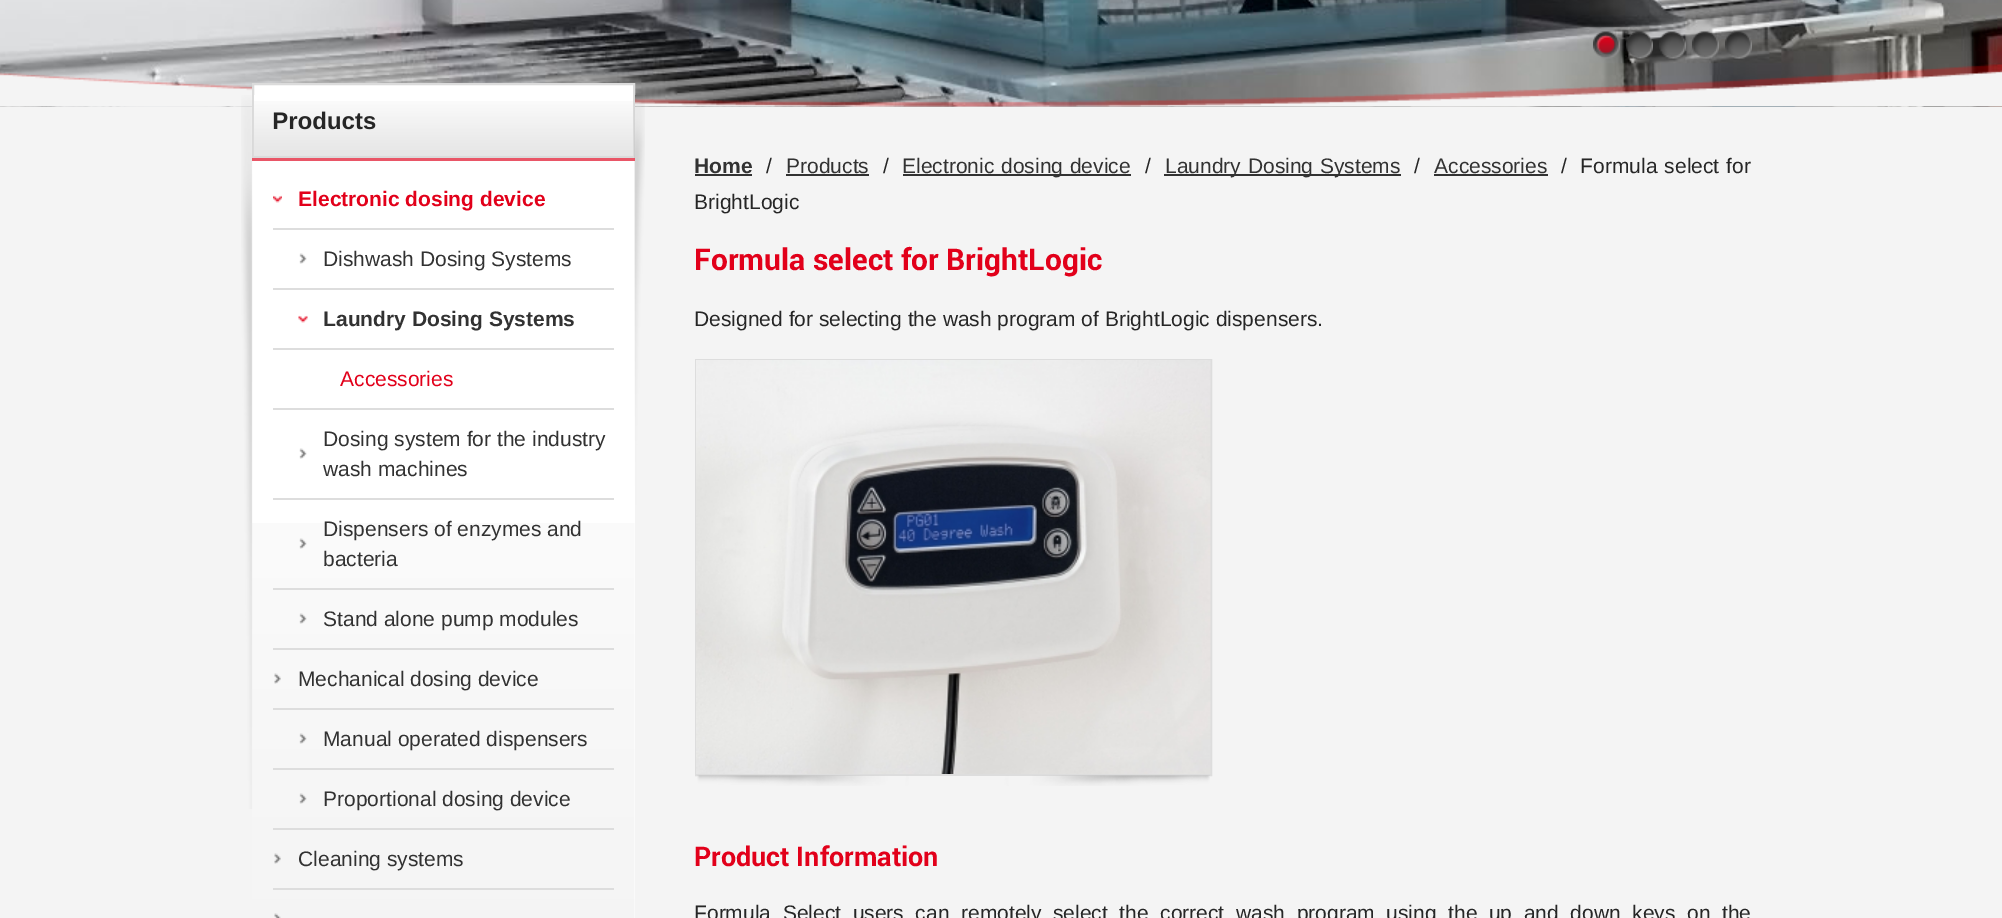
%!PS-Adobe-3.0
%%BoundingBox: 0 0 2002 918
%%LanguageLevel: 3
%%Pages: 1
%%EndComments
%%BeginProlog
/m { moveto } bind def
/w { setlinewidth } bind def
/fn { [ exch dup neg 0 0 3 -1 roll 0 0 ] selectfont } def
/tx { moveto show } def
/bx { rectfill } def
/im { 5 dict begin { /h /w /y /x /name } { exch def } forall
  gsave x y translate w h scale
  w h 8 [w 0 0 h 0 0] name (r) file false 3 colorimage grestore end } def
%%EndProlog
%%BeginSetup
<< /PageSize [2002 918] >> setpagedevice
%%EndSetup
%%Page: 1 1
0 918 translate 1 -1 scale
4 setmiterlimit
0.957 setgray
0 0 2002 918 bx
(image0.raw) 0 106 2002 1 im
(image2.raw) 0 106 2002 1 im
(image1.raw) 0 0 2002 107 im
(image3.raw) 0 64 2002 43 im
(image4.raw) 1593 31 27 28 im
(image5.raw) 1626 31 27 28 im
(image6.raw) 1659 31 27 28 im
(image7.raw) 1692 31 27 28 im
(image8.raw) 1725 31 27 28 im
1 setgray
252 85 383 833 bx
(image9.raw) 252 523 383 395 im
(image10.raw) 254 101 379 55 im
0.859 setgray
2 w
253 84 381 73 rectstroke
/LiberationSans-Bold 24 fn
0.149 setgray
(Products) 272 129 tx
(image11.raw) 241 95 404 714 im
0.914 0.337 0.404 setrgbcolor
252 158 383 3 bx
(image12.raw) 273 195 9 8 im
/LiberationSans-Bold 21 fn
0.886 0 0.102 setrgbcolor
(Electronic dosing device) 298 206 tx
0.867 setgray
273 228 341 2 bx
(image13.raw) 299 253 8 11 im
/LiberationSans-Regular 21 fn
0.196 setgray
(Dishwash Dosing Systems) 323 266 tx
0.867 setgray
273 288 341 2 bx
(image14.raw) 298 315 10 8 im
/LiberationSans-Bold 21 fn
0.196 setgray
(Laundry Dosing Systems) 323 326 tx
0.867 setgray
273 348 341 2 bx
/LiberationSans-Regular 21 fn
0.886 0 0.102 setrgbcolor
(Accessories) 340 386 tx
0.867 setgray
273 408 341 2 bx
0.196 setgray
(Dosing system for the industry) 323 446 tx
(image13.raw) 299 448 8 11 im
(wash machines) 323 476 tx
0.867 setgray
273 498 341 2 bx
0.196 setgray
(Dispensers of enzymes and) 323 536 tx
(image15.raw) 299 538 8 11 im
(bacteria) 323 566 tx
0.867 setgray
273 588 341 2 bx
(image16.raw) 299 613 8 11 im
0.196 setgray
(Stand alone pump modules) 323 626 tx
0.867 setgray
273 648 341 2 bx
(image17.raw) 274 673 7 11 im
0.196 setgray
(Mechanical dosing device) 298 686 tx
0.867 setgray
273 708 341 2 bx
(image18.raw) 299 733 8 11 im
0.196 setgray
(Manual operated dispensers) 323 746 tx
0.867 setgray
273 768 341 2 bx
(image19.raw) 299 793 8 11 im
0.196 setgray
(Proportional dosing device) 323 806 tx
0.867 setgray
273 828 341 2 bx
(image20.raw) 274 853 7 11 im
0.196 setgray
(Cleaning systems) 298 866 tx
0.867 setgray
273 888 341 2 bx
(image21.raw) 274 913 7 5 im
/LiberationSans-Bold 21 fn
0.196 setgray
(Home) 694 173 tx
695 174 57 2 bx
/LiberationSans-Regular 21 fn
0.149 setgray
(/) 766 173 tx
0.196 setgray
(Products) 786 173 tx
786 174 83 2 bx
0.149 setgray
(/) 883 173 tx
0.196 setgray
903 174 228 2 bx
902 173 m 1 0 32 (Electronic dosing device) widthshow
0.149 setgray
(/) 1145 173 tx
0.196 setgray
1164 174 237 2 bx
1165 173 m 1 0 32 (Laundry Dosing Systems) widthshow
0.149 setgray
(/) 1414 173 tx
0.196 setgray
(Accessories) 1434 173 tx
1434 174 114 2 bx
0.149 setgray
1561 173 m 1 0 32 (/  Formula select for) widthshow
(BrightLogic) 694 209 tx
/Roboto-Bold 30 fn
0.886 0 0.102 setrgbcolor
(Formula select for BrightLogic) 694 270 tx
/LiberationSans-Regular 21 fn
0.149 setgray
(Designed for selecting the wash program of BrightLogic dispensers.) 694 326 tx
0.867 setgray
696 360 515 415 rectstroke
(image22.raw) 696 360 515 414 im
(image23.raw) 697 775 513 11 im
/Roboto-Bold 27 fn
0.886 0 0.102 setrgbcolor
(Product Information) 694 866 tx
/LiberationSans-Regular 21 fn
0.149 setgray
694 920 m 5.75 0 32 (Formula Select users can remotely select the correct wash program using the up and down keys on the) widthshow
showpage
%%EOF
